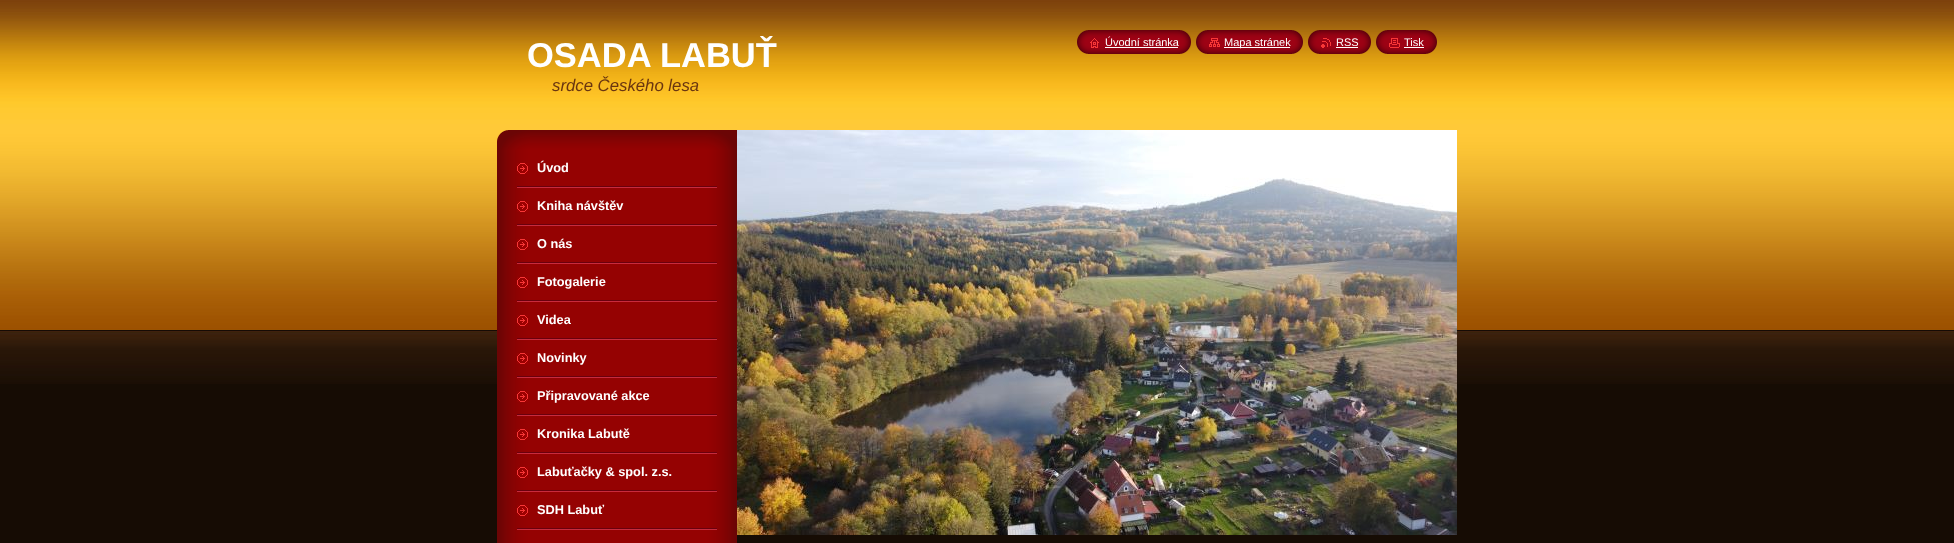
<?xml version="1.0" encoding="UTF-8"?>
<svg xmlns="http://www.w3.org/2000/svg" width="1954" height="543">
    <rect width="100%" height="100%" fill="#160C04"/>
    <image x="0" y="0" width="1954" height="384" href="img_01.png"/>
    <text x="527" y="67" font-family="Liberation Sans" font-size="34.5" font-weight="700" fill="#FFFFFF">OSADA LABUŤ</text>
    <text x="552" y="91" font-family="Liberation Sans" font-size="16.75" font-style="italic" fill="#6A3610">srdce Českého lesa</text>
    <image x="1077" y="30" width="13" height="24" href="img_02.png"/>
    <image x="1090" y="30" width="101" height="24" href="img_03.png"/>
    <image x="1090" y="38" width="9" height="10" href="img_04.png"/>
    <text x="1105" y="46" font-family="Liberation Sans" font-size="11" fill="#FFFFFF">Úvodní stránka</text>
    <rect x="1105" y="47" width="73" height="1" fill="#FFFFFF"/>
    <image x="1196" y="30" width="13" height="24" href="img_02.png"/>
    <image x="1209" y="30" width="94" height="24" href="img_05.png"/>
    <image x="1209" y="38" width="11" height="9" href="img_06.png"/>
    <rect x="1224" y="47" width="66" height="1" fill="#FFFFFF"/>
    <text x="1224" y="46" font-family="Liberation Sans" font-size="11" fill="#FFFFFF">Mapa stránek</text>
    <image x="1308" y="30" width="13" height="24" href="img_02.png"/>
    <image x="1321" y="30" width="50" height="24" href="img_07.png"/>
    <image x="1321" y="38" width="10" height="10" href="img_08.png"/>
    <text x="1336" y="46" font-family="Liberation Sans" font-size="11" fill="#FFFFFF">RSS</text>
    <rect x="1336" y="47" width="22" height="1" fill="#FFFFFF"/>
    <image x="1376" y="30" width="13" height="24" href="img_02.png"/>
    <image x="1389" y="30" width="48" height="24" href="img_09.png"/>
    <image x="1389" y="38" width="11" height="10" href="img_10.png"/>
    <text x="1404" y="46" font-family="Liberation Sans" font-size="11" fill="#FFFFFF">Tisk</text>
    <rect x="1404" y="47" width="20" height="1" fill="#FFFFFF"/>
    <image x="497" y="130" width="240" height="20" href="img_11.png"/>
    <image x="497" y="150" width="240" height="393" href="img_12.png"/>
    <image x="517" y="186" width="200" height="2" href="img_13.png"/>
    <image x="517" y="163" width="11" height="11" href="img_14.png"/>
    <text x="537" y="172" font-family="Liberation Sans" font-size="12.75" font-weight="700" fill="#FFFFFF">Úvod</text>
    <image x="517" y="224" width="200" height="2" href="img_13.png"/>
    <image x="517" y="201" width="11" height="11" href="img_14.png"/>
    <text x="537" y="210" font-family="Liberation Sans" font-size="12.75" font-weight="700" fill="#FFFFFF">Kniha návštěv</text>
    <image x="517" y="262" width="200" height="2" href="img_13.png"/>
    <image x="517" y="239" width="11" height="11" href="img_14.png"/>
    <text x="537" y="248" font-family="Liberation Sans" font-size="12.75" font-weight="700" fill="#FFFFFF">O nás</text>
    <image x="517" y="300" width="200" height="2" href="img_13.png"/>
    <image x="517" y="277" width="11" height="11" href="img_14.png"/>
    <text x="537" y="286" font-family="Liberation Sans" font-size="12.75" font-weight="700" fill="#FFFFFF">Fotogalerie</text>
    <image x="517" y="338" width="200" height="2" href="img_13.png"/>
    <image x="517" y="315" width="11" height="11" href="img_14.png"/>
    <text x="537" y="324" font-family="Liberation Sans" font-size="12.75" font-weight="700" fill="#FFFFFF">Videa</text>
    <image x="517" y="376" width="200" height="2" href="img_13.png"/>
    <image x="517" y="353" width="11" height="11" href="img_14.png"/>
    <text x="537" y="362" font-family="Liberation Sans" font-size="12.75" font-weight="700" fill="#FFFFFF">Novinky</text>
    <image x="517" y="414" width="200" height="2" href="img_13.png"/>
    <image x="517" y="391" width="11" height="11" href="img_14.png"/>
    <text x="537" y="400" font-family="Liberation Sans" font-size="12.75" font-weight="700" fill="#FFFFFF">Připravované akce</text>
    <image x="517" y="452" width="200" height="2" href="img_13.png"/>
    <image x="517" y="429" width="11" height="11" href="img_14.png"/>
    <text x="537" y="438" font-family="Liberation Sans" font-size="12.75" font-weight="700" fill="#FFFFFF">Kronika Labutě</text>
    <image x="517" y="490" width="200" height="2" href="img_13.png"/>
    <image x="517" y="467" width="11" height="11" href="img_14.png"/>
    <text x="537" y="476" font-family="Liberation Sans" font-size="12.75" font-weight="700" fill="#FFFFFF">Labuťačky &amp; spol. z.s.</text>
    <image x="517" y="528" width="200" height="2" href="img_13.png"/>
    <image x="517" y="505" width="11" height="11" href="img_14.png"/>
    <text x="537" y="514" font-family="Liberation Sans" font-size="12.75" font-weight="700" fill="#FFFFFF">SDH Labuť</text>
    <image x="737" y="130" width="720" height="405" href="img_15.png"/>
</svg>
